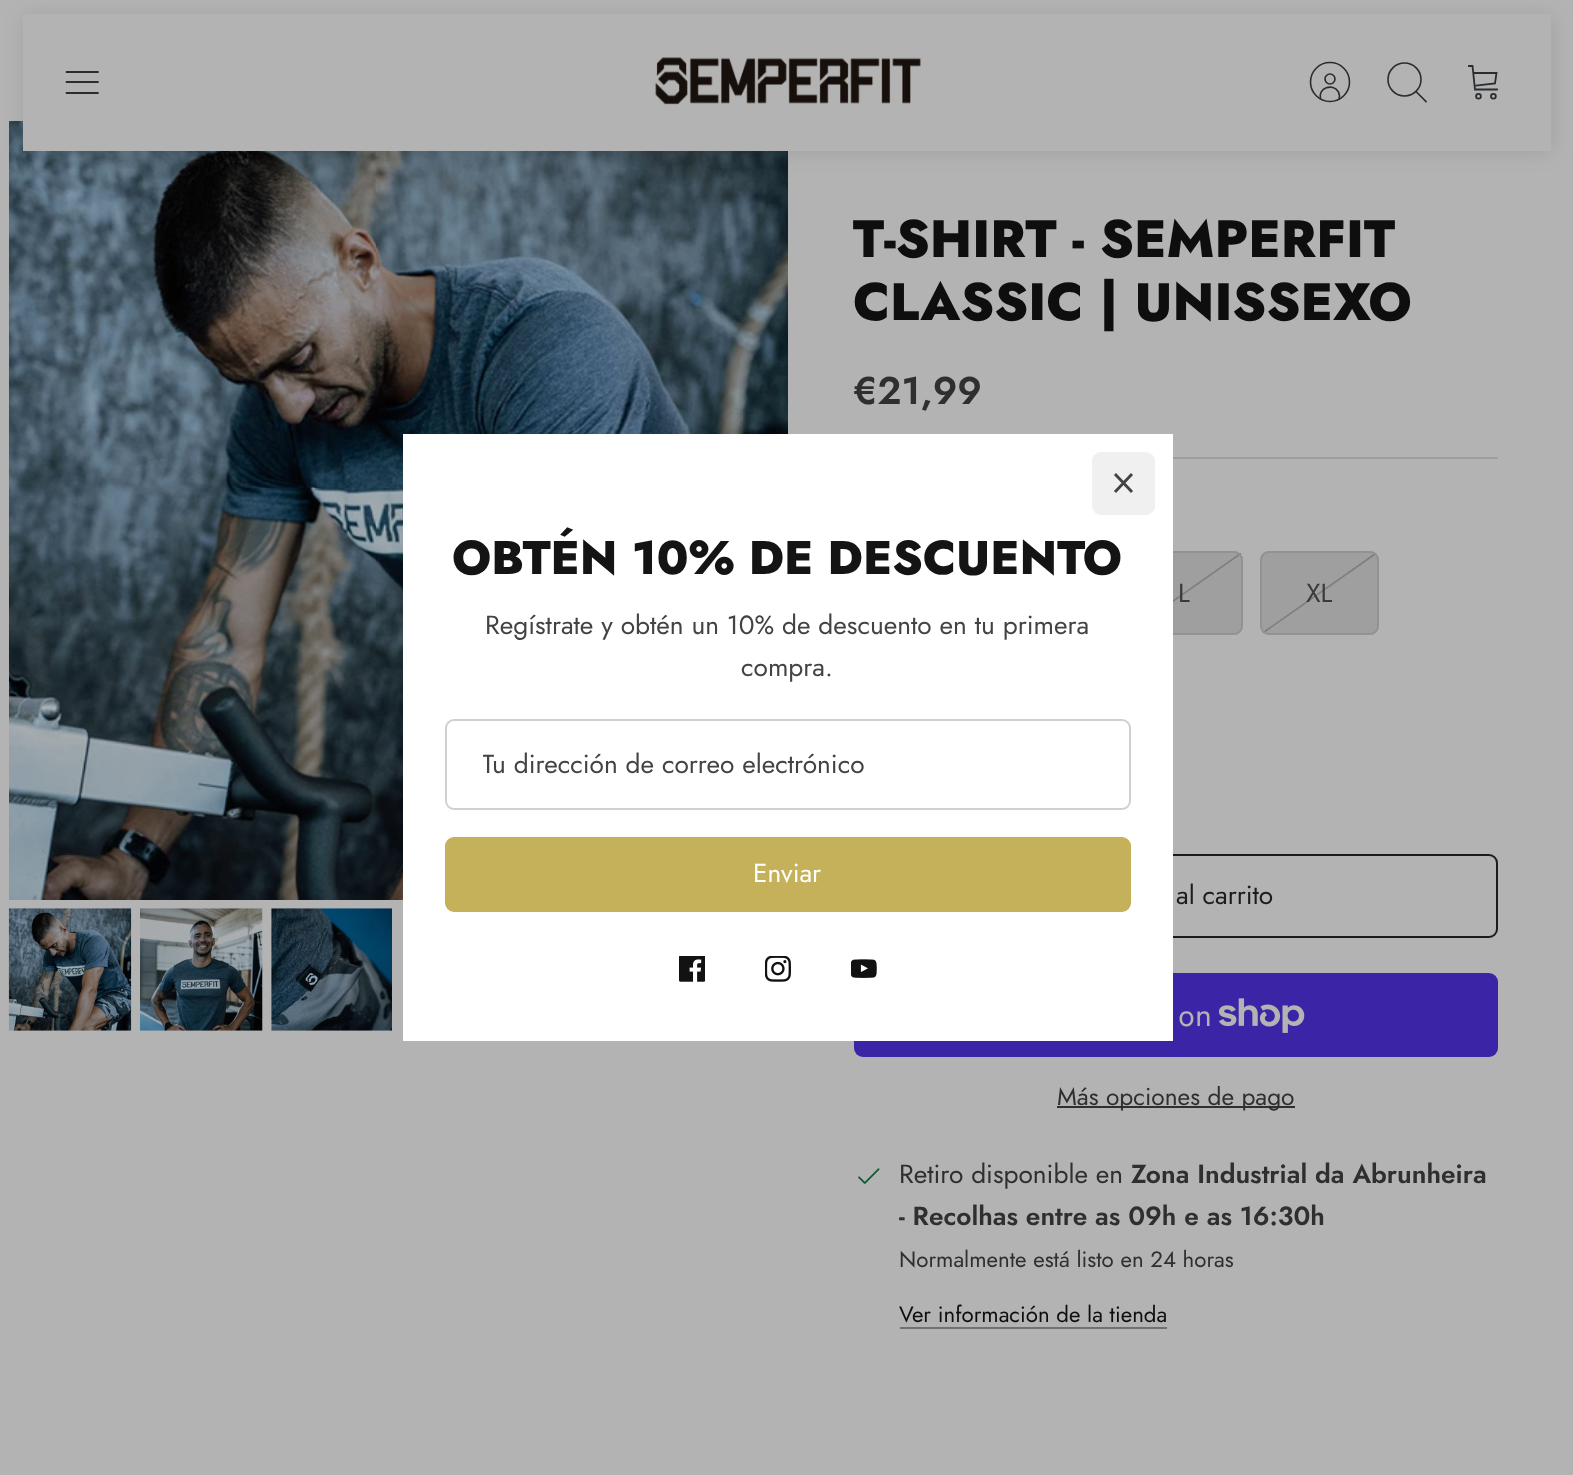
<?xml version="1.0" encoding="UTF-8"?>
<svg xmlns="http://www.w3.org/2000/svg" width="1573" height="1475">
    <defs>
        <filter id="blur1" x="-50%" y="-200%" width="200%" height="500%"><feGaussianBlur stdDeviation="10.5"/></filter>
        <clipPath id="clip1"><rect x="1127" y="553" width="114" height="81"/></clipPath>
        <clipPath id="clip2"><rect x="483" y="744" width="609" height="38"/></clipPath>
        <clipPath id="clip3"><rect x="1260" y="551" width="119" height="84" rx="9"/></clipPath>
    </defs>
    <rect width="100%" height="100%" fill="#B3B3B3"/>
    <image x="9" y="121" width="779" height="779" href="img_05.png"/>
    <rect x="25" y="16" width="1527" height="136" fill="#000000" fill-opacity="0.1" filter="url(#blur1)"/>
    <rect x="23" y="14" width="1528" height="137" fill="#B3B3B3"/>
    <path d="M 66.5 82 H 98 M 66.5 72 H 98 M 66.5 93 H 98" fill="none" stroke="#2A2D2F" stroke-width="1.8" stroke-linecap="round" stroke-linejoin="round"/>
    <image x="655" y="57" width="266" height="48" href="img_01.png"/>
    <path d="M 1339 99.5 C 1340 97 1339.5 94.5 1338.5 92 C 1333 82.5 1317.5 88 1320.5 99" fill="none" stroke="#2A2D2F" stroke-width="1.6"/>
    <circle cx="1330" cy="79" r="5" fill="none" stroke="#2A2D2F" stroke-width="1.6"/>
    <circle cx="1330" cy="82" r="19.5" fill="none" stroke="#2A2D2F" stroke-width="1.6"/>
    <circle cx="1404.5" cy="79.5" r="16.5" fill="none" stroke="#2A2D2F" stroke-width="1.6"/>
    <path d="M 1416.5 92 L 1426 101.5" fill="none" stroke="#2A2D2F" stroke-width="1.6" stroke-linecap="square"/>
    <path d="M 1469 66 H 1472.5 L 1475 89.5 H 1497 M 1474 73 H 1496.5 L 1495 83.5 L 1476.5 85.5" fill="none" stroke="#2A2D2F" stroke-width="1.8" stroke-linecap="square"/>
    <circle cx="1478.5" cy="96.3" r="2.4" fill="none" stroke="#2A2D2F" stroke-width="1.8"/>
    <circle cx="1493.4" cy="96.3" r="2.4" fill="none" stroke="#2A2D2F" stroke-width="1.8"/>
    <rect x="1125" y="551" width="118" height="84" rx="9" fill="#9F9F9F"/>
    <g clip-path="url(#clip1)">
        <path d="M 1241.5 553 L 1127 633.5" fill="none" stroke="#7D7D7D" stroke-width="1.6"/>
    </g>
    <rect x="1126" y="552" width="116" height="82" rx="8" fill="none" stroke="#929292" stroke-width="2"/>
    <rect x="855" y="855" width="642" height="82" rx="8" fill="none" stroke="#1C1C1C" stroke-width="2"/>
    <rect x="854" y="973" width="644" height="84" rx="9" fill="#3B24A5"/>
    <rect x="403" y="434" width="770" height="607" fill="#FFFFFF"/>
    <rect x="1092" y="452" width="63" height="63" rx="9" fill="#F0F0F0"/>
    <path d="M 1132 474 L 1115 492 M 1115 474 L 1132 492" fill="none" stroke="#434343" stroke-width="2.9"/>
    <text x="452" y="574" font-family="Jost" font-size="47.25" font-weight="800" fill="#141414">OBTÉN 10% DE DESCUENTO</text>
    <text x="485" y="634" font-family="Jost" font-size="26.25" fill="#434343">Regístrate y obtén un 10% de descuento en tu primera</text>
    <text x="741" y="676" font-family="Jost" font-size="26.25" fill="#434343">compra.</text>
    <rect x="446" y="720" width="684" height="89" rx="8" fill="none" stroke="#D0D0D0" stroke-width="2"/>
    <g clip-path="url(#clip2)">
        <text x="482" y="773" font-family="Jost" font-size="26.25" fill="#434343">Tu dirección de correo electrónico</text>
    </g>
    <rect x="446" y="838" width="684" height="73" rx="8" fill="#C5B159" stroke="#C5B159" stroke-width="2"/>
    <text x="753" y="882" font-family="Jost" font-size="26.25" fill="#FFFFFF">Enviar</text>
    <image x="679" y="956" width="26" height="26" href="img_02.png"/>
    <image x="765" y="956" width="26" height="26" href="img_03.png"/>
    <image x="851" y="959" width="26" height="19" href="img_04.png"/>
    <image x="8" y="908" width="124" height="123" href="img_06.png"/>
    <image x="140" y="908" width="123" height="123" href="img_07.png"/>
    <image x="271" y="908" width="121" height="123" href="img_08.png"/>
    <text font-family="Jost" font-size="52.5" font-weight="800" fill="#0E0E0E">
        <tspan x="853" y="257">T-SHIRT - SEMPERFIT</tspan>
        <tspan x="853" y="320">CLASSIC | UNISSEXO</tspan>
    </text>
    <text x="853" y="404" font-family="Jost" font-size="38.5" font-weight="600" fill="#2F2F2F">€21,99</text>
    <rect x="1173" y="457" width="325" height="2" fill="#9E9E9E"/>
    <text x="1178" y="602" font-family="Jost" font-size="26.25" fill="#3A3A3A">L</text>
    <rect x="1260" y="551" width="119" height="84" rx="9" fill="#9F9F9F"/>
    <g clip-path="url(#clip3)">
        <path d="M 1376.5 553 L 1262 633.5" fill="none" stroke="#7D7D7D" stroke-width="1.6"/>
    </g>
    <rect x="1261" y="552" width="117" height="82" rx="8" fill="none" stroke="#929292" stroke-width="2"/>
    <text x="1306" y="602" font-family="Jost" font-size="26.25" fill="#3A3A3A">XL</text>
    <text x="1176" y="904" font-family="Jost" font-size="26.25" fill="#1C1C1C">al carrito</text>
    <text x="1178" y="1026" font-family="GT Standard" font-size="28" fill="#B3B3B3">on</text>
    <image x="1219" y="998" width="86" height="35" href="img_09.png"/>
    <rect x="1057" y="1106" width="238" height="2" fill="#2F2F2F"/>
    <text x="1057" y="1105" font-family="Jost" font-size="24.5" fill="#2F2F2F">Más opciones de pago</text>
    <image x="858" y="1168" width="22" height="16" href="img_10.png"/>
    <text x="899" y="1183" font-family="Jost" font-size="26.25" fill="#2F2F2F">Retiro disponible en</text>
    <text x="1131" y="1183" font-family="Jost" font-size="26.25" font-weight="600" fill="#2F2F2F">Zona Industrial da Abrunheira</text>
    <text x="899" y="1225" font-family="Jost" font-size="26.25" font-weight="600" fill="#2F2F2F">- Recolhas entre as 09h e as 16:30h</text>
    <text x="899" y="1267" font-family="Jost" font-size="22.25" fill="#2F2F2F">Normalmente está listo en 24 horas</text>
    <text x="899" y="1322" font-family="Jost" font-size="22.25" fill="#0E0E0E">Ver información de la tienda</text>
    <rect x="900" y="1327" width="267" height="2" fill="#707070"/>
</svg>
